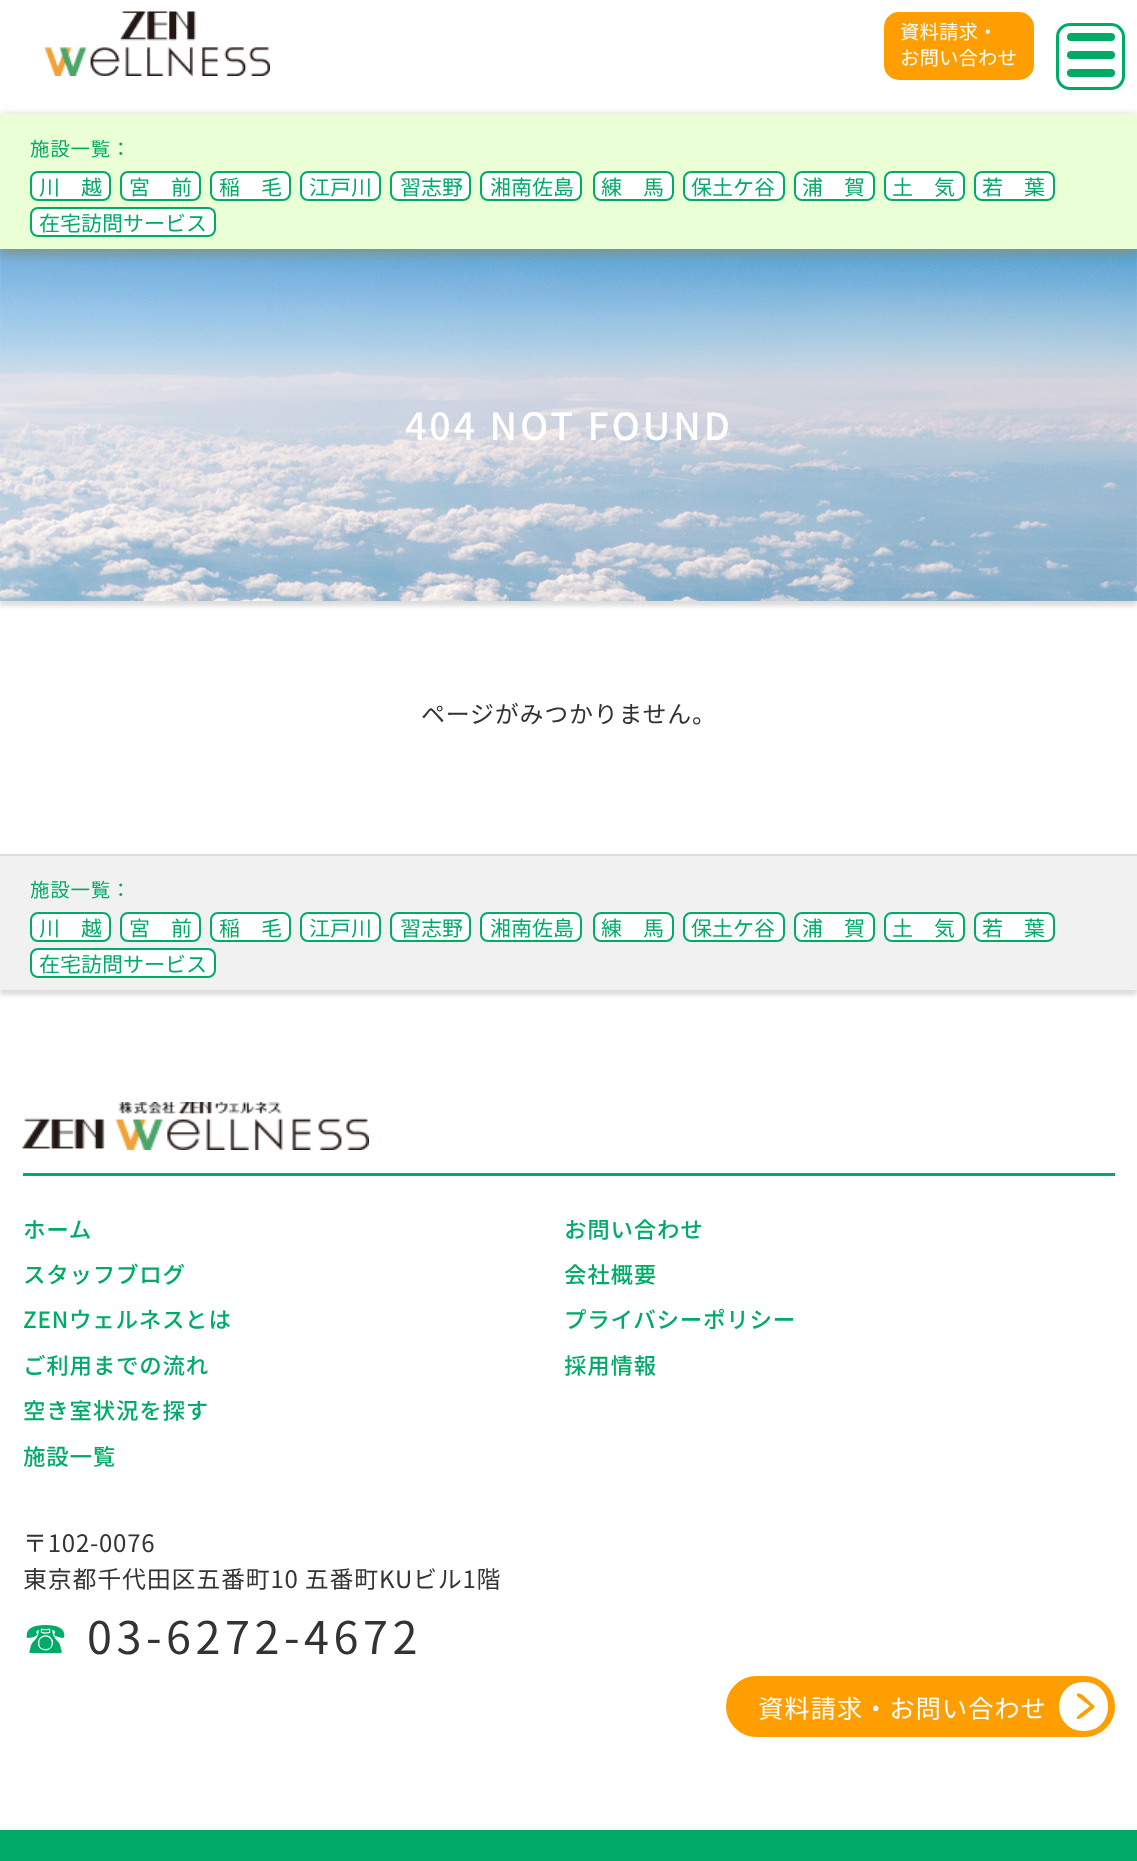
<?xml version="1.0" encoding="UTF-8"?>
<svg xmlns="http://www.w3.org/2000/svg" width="1137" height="1861">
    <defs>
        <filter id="blur1" x="-50%" y="-200%" width="200%" height="500%"><feGaussianBlur stdDeviation="2"/></filter>
        <filter id="blur2" x="-50%" y="-200%" width="200%" height="500%"><feGaussianBlur stdDeviation="6"/></filter>
    </defs>
    <rect width="100%" height="100%" fill="#FFFFFF"/>
    <image x="45" y="11" width="225" height="65" href="img_01.png"/>
    <rect x="885" y="13" width="148" height="66" rx="14" fill="#FF9E00" stroke="#FF9E00" stroke-width="2"/>
    <text font-family="Noto Sans JP" font-size="19.5" fill="#FFFFFF">
        <tspan x="900" y="39">資料請求・</tspan>
        <tspan x="900" y="65">お問い合わせ</tspan>
    </text>
    <rect x="1057.5" y="24.5" width="66" height="64" rx="12.5" fill="none" stroke="#00AB67" stroke-width="3"/>
    <rect x="1067" y="51" width="48" height="8" rx="4" fill="#00AB67"/>
    <rect x="1067" y="33" width="48" height="8" rx="4" fill="#00AB67"/>
    <rect x="1067" y="69" width="48" height="8" rx="4" fill="#00AB67"/>
    <rect x="0" y="254" width="1137" height="352" fill="#DDDDDD" filter="url(#blur1)"/>
    <image x="0" y="249" width="1137" height="352" href="img_02.png"/>
    <rect x="0" y="119" width="1137" height="135" fill="#83948A" filter="url(#blur2)"/>
    <rect x="0" y="114" width="1137" height="135" fill="#EBFFD7"/>
    <text x="30" y="156" font-family="Noto Sans JP" font-size="19.5" letter-spacing="0.75" fill="#00AB67">施設一覧：</text>
    <rect x="31" y="172" width="79" height="28" rx="7" fill="#FFFFFF" stroke="#00AB67" stroke-width="2"/>
    <text x="39" y="195" font-family="Noto Sans JP" font-size="21" fill="#00AB67">川　越</text>
    <rect x="121" y="172" width="79" height="28" rx="7" fill="#FFFFFF" stroke="#00AB67" stroke-width="2"/>
    <text x="129" y="195" font-family="Noto Sans JP" font-size="21" fill="#00AB67">宮　前</text>
    <rect x="211" y="172" width="79" height="28" rx="7" fill="#FFFFFF" stroke="#00AB67" stroke-width="2"/>
    <text x="219" y="195" font-family="Noto Sans JP" font-size="21" fill="#00AB67">稲　毛</text>
    <rect x="301" y="172" width="79" height="28" rx="7" fill="#FFFFFF" stroke="#00AB67" stroke-width="2"/>
    <text x="309" y="195" font-family="Noto Sans JP" font-size="21" fill="#00AB67">江戸川</text>
    <rect x="391" y="172" width="79" height="28" rx="7" fill="#FFFFFF" stroke="#00AB67" stroke-width="2"/>
    <text x="400" y="195" font-family="Noto Sans JP" font-size="21" fill="#00AB67">習志野</text>
    <rect x="481" y="172" width="100" height="28" rx="7" fill="#FFFFFF" stroke="#00AB67" stroke-width="2"/>
    <text x="490" y="195" font-family="Noto Sans JP" font-size="21" fill="#00AB67">湘南佐島</text>
    <rect x="594" y="172" width="79" height="28" rx="7" fill="#FFFFFF" stroke="#00AB67" stroke-width="2"/>
    <text x="601" y="195" font-family="Noto Sans JP" font-size="21" fill="#00AB67">練　馬</text>
    <rect x="684" y="172" width="100" height="28" rx="7" fill="#FFFFFF" stroke="#00AB67" stroke-width="2"/>
    <text x="691" y="195" font-family="Noto Sans JP" font-size="21" fill="#00AB67">保土ケ谷</text>
    <rect x="795" y="172" width="79" height="28" rx="7" fill="#FFFFFF" stroke="#00AB67" stroke-width="2"/>
    <text x="802" y="195" font-family="Noto Sans JP" font-size="21" fill="#00AB67">浦　賀</text>
    <rect x="885" y="172" width="79" height="28" rx="7" fill="#FFFFFF" stroke="#00AB67" stroke-width="2"/>
    <text x="892" y="195" font-family="Noto Sans JP" font-size="21" fill="#00AB67">土　気</text>
    <rect x="975" y="172" width="79" height="28" rx="7" fill="#FFFFFF" stroke="#00AB67" stroke-width="2"/>
    <text x="982" y="195" font-family="Noto Sans JP" font-size="21" fill="#00AB67">若　葉</text>
    <rect x="31" y="208" width="184" height="28" rx="7" fill="#FFFFFF" stroke="#00AB67" stroke-width="2"/>
    <text x="39" y="231" font-family="Noto Sans JP" font-size="21" fill="#00AB67">在宅訪問サービス</text>
    <text x="405" y="440" font-family="Noto Sans JP" font-size="37.5" font-weight="500" letter-spacing="3" fill="#FFFFFF">404 NOT FOUND</text>
    <text x="421" y="723" font-family="Noto Sans JP" font-size="24" letter-spacing="0.75" fill="#333333">ページがみつかりません。</text>
    <rect x="0" y="858" width="1137" height="137" fill="#DDDDDD" filter="url(#blur1)"/>
    <rect x="0" y="856" width="1137" height="134" fill="#F1F1F1"/>
    <rect x="0" y="854" width="1137" height="2" fill="#DDDDDD"/>
    <text x="30" y="897" font-family="Noto Sans JP" font-size="19.5" letter-spacing="0.75" fill="#00AB67">施設一覧：</text>
    <rect x="31" y="913" width="79" height="28" rx="7" fill="#FFFFFF" stroke="#00AB67" stroke-width="2"/>
    <text x="39" y="936" font-family="Noto Sans JP" font-size="21" fill="#00AB67">川　越</text>
    <rect x="121" y="913" width="79" height="28" rx="7" fill="#FFFFFF" stroke="#00AB67" stroke-width="2"/>
    <text x="129" y="936" font-family="Noto Sans JP" font-size="21" fill="#00AB67">宮　前</text>
    <rect x="211" y="913" width="79" height="28" rx="7" fill="#FFFFFF" stroke="#00AB67" stroke-width="2"/>
    <text x="219" y="936" font-family="Noto Sans JP" font-size="21" fill="#00AB67">稲　毛</text>
    <rect x="301" y="913" width="79" height="28" rx="7" fill="#FFFFFF" stroke="#00AB67" stroke-width="2"/>
    <text x="309" y="936" font-family="Noto Sans JP" font-size="21" fill="#00AB67">江戸川</text>
    <rect x="391" y="913" width="79" height="28" rx="7" fill="#FFFFFF" stroke="#00AB67" stroke-width="2"/>
    <text x="400" y="936" font-family="Noto Sans JP" font-size="21" fill="#00AB67">習志野</text>
    <rect x="481" y="913" width="100" height="28" rx="7" fill="#FFFFFF" stroke="#00AB67" stroke-width="2"/>
    <text x="490" y="936" font-family="Noto Sans JP" font-size="21" fill="#00AB67">湘南佐島</text>
    <rect x="594" y="913" width="79" height="28" rx="7" fill="#FFFFFF" stroke="#00AB67" stroke-width="2"/>
    <text x="601" y="936" font-family="Noto Sans JP" font-size="21" fill="#00AB67">練　馬</text>
    <rect x="684" y="913" width="100" height="28" rx="7" fill="#FFFFFF" stroke="#00AB67" stroke-width="2"/>
    <text x="691" y="936" font-family="Noto Sans JP" font-size="21" fill="#00AB67">保土ケ谷</text>
    <rect x="795" y="913" width="79" height="28" rx="7" fill="#FFFFFF" stroke="#00AB67" stroke-width="2"/>
    <text x="802" y="936" font-family="Noto Sans JP" font-size="21" fill="#00AB67">浦　賀</text>
    <rect x="885" y="913" width="79" height="28" rx="7" fill="#FFFFFF" stroke="#00AB67" stroke-width="2"/>
    <text x="892" y="936" font-family="Noto Sans JP" font-size="21" fill="#00AB67">土　気</text>
    <rect x="975" y="913" width="79" height="28" rx="7" fill="#FFFFFF" stroke="#00AB67" stroke-width="2"/>
    <text x="982" y="936" font-family="Noto Sans JP" font-size="21" fill="#00AB67">若　葉</text>
    <rect x="31" y="949" width="184" height="28" rx="7" fill="#FFFFFF" stroke="#00AB67" stroke-width="2"/>
    <text x="39" y="972" font-family="Noto Sans JP" font-size="21" fill="#00AB67">在宅訪問サービス</text>
    <rect x="23" y="1173" width="1092" height="3" fill="#00AB67"/>
    <image x="22" y="1102" width="347" height="48" href="img_03.png"/>
    <text x="23" y="1238" font-family="Noto Sans JP" font-size="22.5" font-weight="500" letter-spacing="0.75" fill="#00AB67">ホーム</text>
    <text x="23" y="1283" font-family="Noto Sans JP" font-size="22.5" font-weight="500" letter-spacing="0.75" fill="#00AB67">スタッフブログ</text>
    <text x="23" y="1328" font-family="Noto Sans JP" font-size="22.5" font-weight="500" letter-spacing="0.75" fill="#00AB67">ZENウェルネスとは</text>
    <text x="23" y="1374" font-family="Noto Sans JP" font-size="22.5" font-weight="500" letter-spacing="0.75" fill="#00AB67">ご利用までの流れ</text>
    <text x="23" y="1419" font-family="Noto Sans JP" font-size="22.5" font-weight="500" letter-spacing="0.75" fill="#00AB67">空き室状況を探す</text>
    <text x="564" y="1238" font-family="Noto Sans JP" font-size="22.5" font-weight="500" letter-spacing="0.75" fill="#00AB67">お問い合わせ</text>
    <text x="564" y="1283" font-family="Noto Sans JP" font-size="22.5" font-weight="500" letter-spacing="0.75" fill="#00AB67">会社概要</text>
    <text x="564" y="1328" font-family="Noto Sans JP" font-size="22.5" font-weight="500" letter-spacing="0.75" fill="#00AB67">プライバシーポリシー</text>
    <text x="564" y="1374" font-family="Noto Sans JP" font-size="22.5" font-weight="500" letter-spacing="0.75" fill="#00AB67">採用情報</text>
    <text x="23" y="1465" font-family="Noto Sans JP" font-size="22.5" font-weight="500" letter-spacing="0.75" fill="#00AB67">施設一覧</text>
    <text font-family="Noto Sans JP" font-size="24" letter-spacing="0.75" fill="#333333">
        <tspan x="23" y="1552">〒102-0076</tspan>
        <tspan x="23" y="1588">東京都千代田区五番町10 五番町KUビル1階</tspan>
    </text>
    <text x="23" y="1654" font-family="WenQuanYi Zen Hei" font-size="45" font-weight="500" letter-spacing="4.5" fill="#00AB67">☎︎</text>
    <text x="87" y="1654" font-family="Noto Sans JP" font-size="45" letter-spacing="4.5" fill="#333333">03-6272-4672</text>
    <rect x="727" y="1677" width="387" height="59" rx="29.5" fill="#FF9E00" stroke="#FF9E00" stroke-width="2"/>
    <text x="758" y="1718" font-family="Noto Sans JP" font-size="25.5" letter-spacing="0.75" fill="#FFFFFF">資料請求・お問い合わせ</text>
    <path d="M 1084 1682 C 1051 1682 1051 1731 1084 1731 C 1116 1731 1116 1682 1084 1682 Z M 1094 1708 C 1088 1712 1076 1724 1077 1717 C 1077 1716 1088 1708 1090 1706 L 1077 1696 V 1694 C 1079 1691 1086 1698 1087 1699 L 1091 1703 C 1092 1704 1096 1706 1094 1708 Z" fill="#FFFFFF" fill-rule="evenodd"/>
    <rect x="0" y="1830" width="1137" height="31" fill="#00AB67"/>
</svg>
